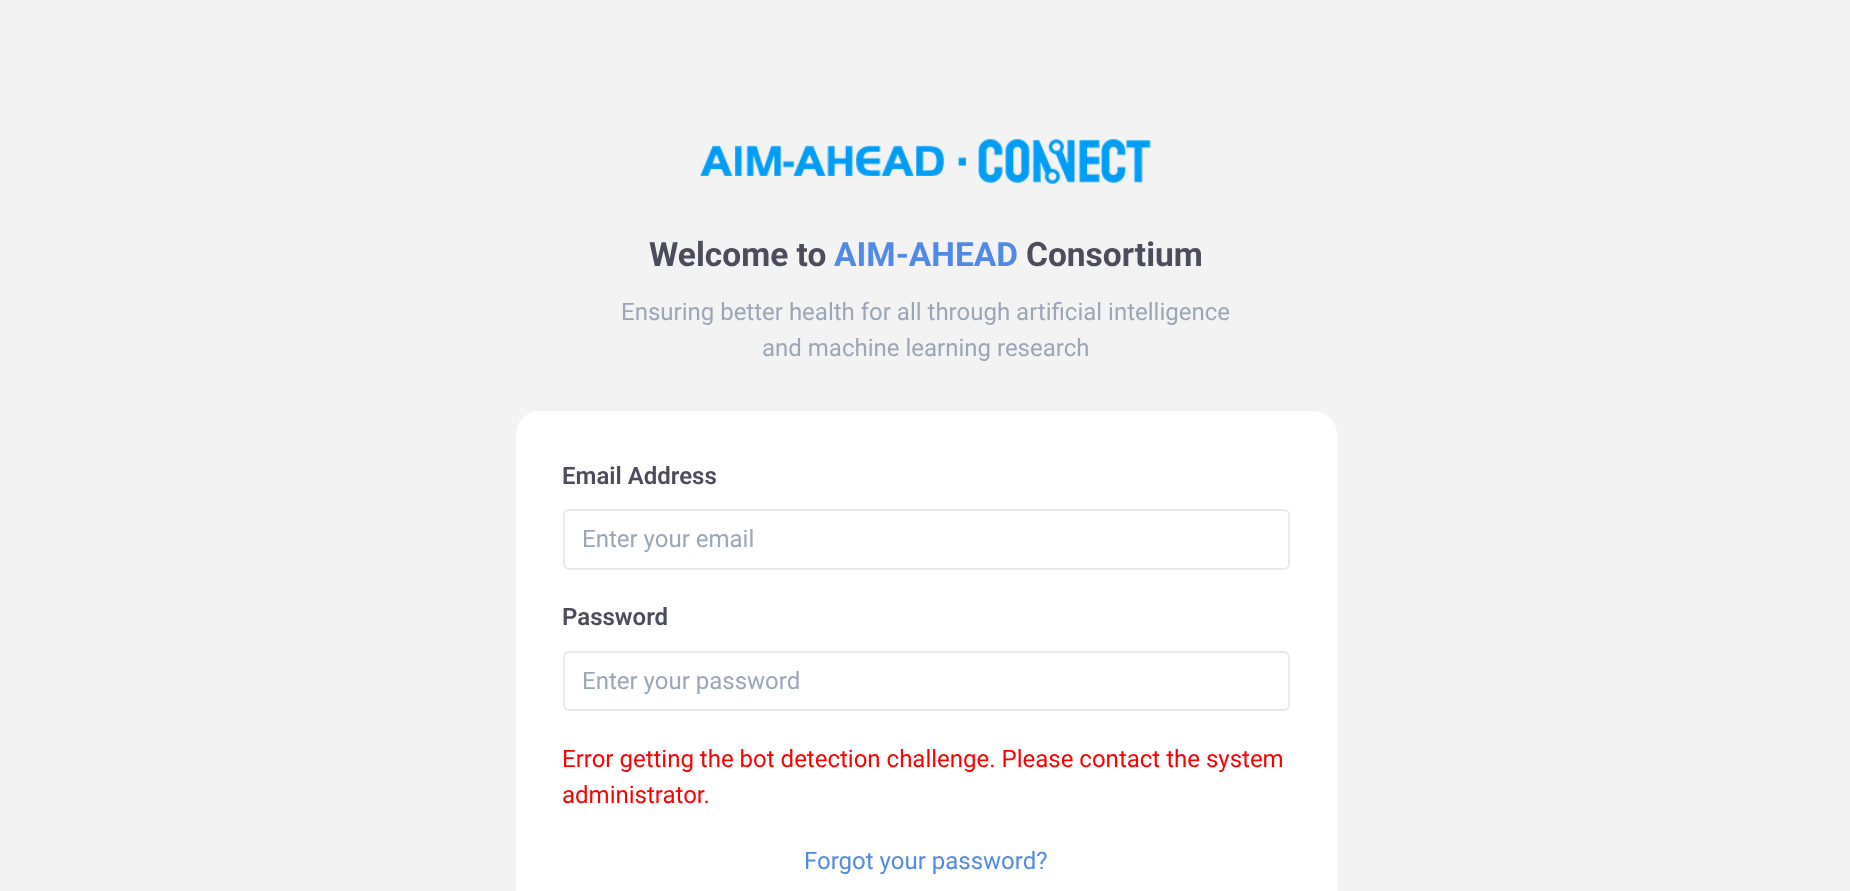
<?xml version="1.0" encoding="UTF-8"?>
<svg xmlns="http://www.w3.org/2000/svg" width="1850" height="891">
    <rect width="100%" height="100%" fill="#F3F3F4"/>
    <image x="700" y="139" width="451" height="45" href="img_01.png"/>
    <text x="649" y="266" font-family="Roboto" font-size="33.5" font-weight="700" fill="#4C4C5C">Welcome to</text>
    <text x="834" y="266" font-family="Roboto" font-size="33.5" font-weight="700" fill="#508AE4">AIM-AHEAD</text>
    <text x="1026" y="266" font-family="Roboto" font-size="33.5" font-weight="700" fill="#4C4C5C">Consortium</text>
    <text x="621" y="320" font-family="Roboto" font-size="24" fill="#9BA6B7">Ensuring better health for all through artificial intelligence</text>
    <text x="762" y="356" font-family="Roboto" font-size="24" fill="#9BA6B7">and machine learning research</text>
    <rect x="516" y="411" width="821" height="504" rx="24" fill="#FFFFFF"/>
    <text x="562" y="484" font-family="Roboto" font-size="24" font-weight="600" fill="#4C4C5C">Email Address</text>
    <rect x="564" y="510" width="725" height="59" rx="5" fill="none" stroke="#E7E9EB" stroke-width="2"/>
    <text x="582" y="547" font-family="Roboto" font-size="24" fill="#9BA6B7">Enter your email</text>
    <text x="562" y="625" font-family="Roboto" font-size="24" font-weight="600" fill="#4C4C5C">Password</text>
    <rect x="564" y="652" width="725" height="58" rx="5" fill="none" stroke="#E7E9EB" stroke-width="2"/>
    <text x="582" y="689" font-family="Roboto" font-size="24" fill="#9BA6B7">Enter your password</text>
    <text font-family="Roboto" font-size="24" fill="#FF0000">
        <tspan x="562" y="767">Error getting the bot detection challenge. Please contact the system</tspan>
        <tspan x="562" y="803">administrator.</tspan>
    </text>
    <text x="804" y="869" font-family="Roboto" font-size="24" fill="#508AE4">Forgot your password?</text>
</svg>
